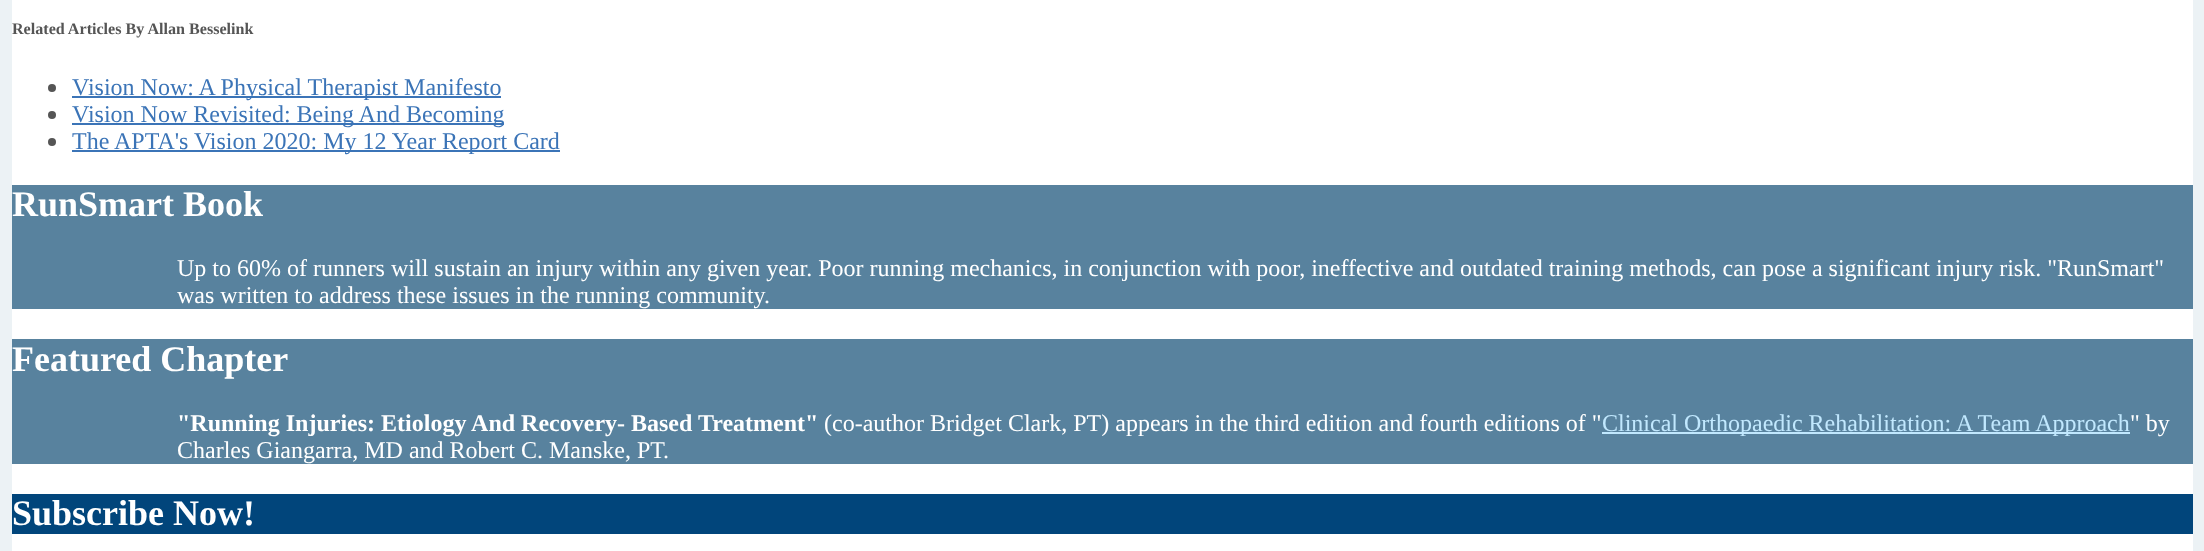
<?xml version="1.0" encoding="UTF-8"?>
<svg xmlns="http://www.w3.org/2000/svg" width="2204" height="551">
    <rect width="100%" height="100%" fill="#ECF2F5"/>
    <rect x="12" y="0" width="2181" height="551" fill="#FFFFFF"/>
    <text x="12" y="34" font-family="Liberation Serif" font-size="16.1" font-weight="700" fill="#555555">Related Articles By Allan Besselink</text>
    <circle cx="52" cy="88" r="4" fill="#555555"/>
    <rect x="72" y="96" width="429" height="2" fill="#3B74B7"/>
    <text x="72" y="95" font-family="Liberation Serif" font-size="24" fill="#3B74B7">Vision Now: A Physical Therapist Manifesto</text>
    <circle cx="52" cy="115" r="4" fill="#555555"/>
    <rect x="72" y="123" width="432" height="2" fill="#3B74B7"/>
    <text x="72" y="122" font-family="Liberation Serif" font-size="24" fill="#3B74B7">Vision Now Revisited: Being And Becoming</text>
    <circle cx="52" cy="142" r="4" fill="#555555"/>
    <rect x="72" y="150" width="488" height="2" fill="#3B74B7"/>
    <text x="72" y="149" font-family="Liberation Serif" font-size="24" fill="#3B74B7">The APTA's Vision 2020: My 12 Year Report Card</text>
    <rect x="12" y="185" width="2181" height="124" fill="#58829E"/>
    <text x="12" y="216" font-family="Liberation Serif" font-size="36" font-weight="700" fill="#FFFFFF">RunSmart Book</text>
    <text font-family="Liberation Serif" font-size="24" fill="#FFFFFF">
        <tspan x="177" y="276">Up to 60% of runners will sustain an injury within any given year. Poor running mechanics, in conjunction with poor, ineffective and outdated training methods, can pose a significant injury risk. "RunSmart"</tspan>
        <tspan x="177" y="303">was written to address these issues in the running community.</tspan>
    </text>
    <rect x="12" y="339" width="2181" height="125" fill="#58829E"/>
    <text x="12" y="371" font-family="Liberation Serif" font-size="36" font-weight="700" fill="#FFFFFF">Featured Chapter</text>
    <text x="177" y="431" font-family="Liberation Serif" font-size="24" font-weight="700" fill="#FFFFFF">"Running Injuries: Etiology And Recovery- Based Treatment"</text>
    <text x="824" y="431" font-family="Liberation Serif" font-size="24" fill="#FFFFFF">(co-author Bridget Clark, PT) appears in the third edition and fourth editions of "</text>
    <rect x="1602" y="432" width="528" height="2" fill="#C1E8FE"/>
    <text x="1602" y="431" font-family="Liberation Serif" font-size="24" fill="#C1E8FE">Clinical Orthopaedic Rehabilitation: A Team Approach</text>
    <text x="2130" y="431" font-family="Liberation Serif" font-size="24" fill="#FFFFFF">" by</text>
    <text x="177" y="458" font-family="Liberation Serif" font-size="24" fill="#FFFFFF">Charles Giangarra, MD and Robert C. Manske, PT.</text>
    <rect x="12" y="494" width="2181" height="40" fill="#01457B"/>
    <text x="12" y="525" font-family="Liberation Serif" font-size="36" font-weight="700" fill="#FFFFFF">Subscribe Now!</text>
</svg>
